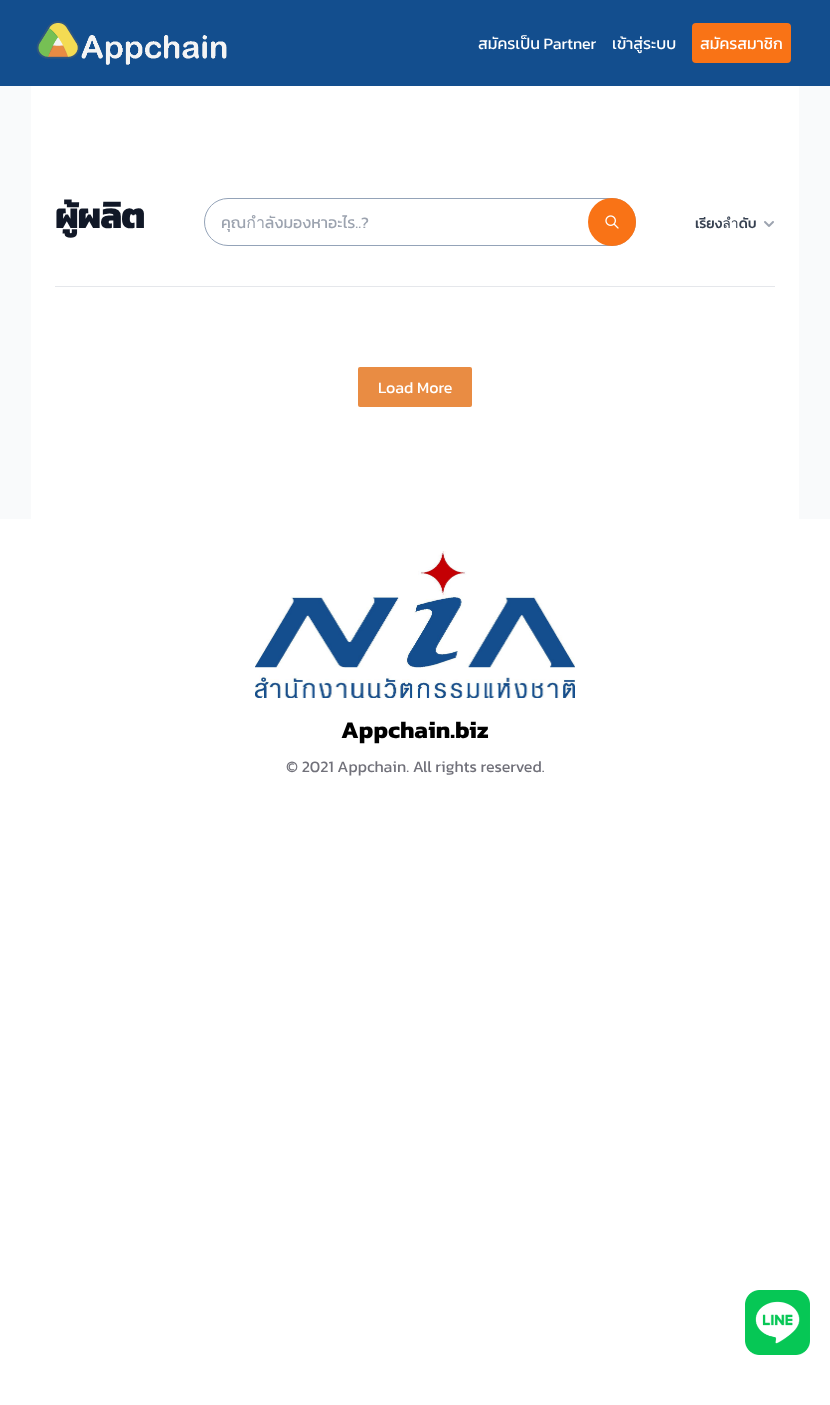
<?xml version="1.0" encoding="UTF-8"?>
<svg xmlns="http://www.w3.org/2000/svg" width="830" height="1405">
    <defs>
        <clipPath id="clip1"><rect x="221" y="210" width="398" height="24"/></clipPath>
    </defs>
    <rect width="100%" height="100%" fill="#FFFFFF"/>
    <rect x="0" y="0" width="830" height="86" fill="#134E8E"/>
    <image x="36" y="21" width="191" height="44" href="img_01.png"/>
    <text x="478" y="49" font-family="Kanit" font-size="16" fill="#FFFFFF">สมัครเป็น Partner</text>
    <text x="612" y="49" font-family="Kanit" font-size="16" fill="#FFFFFF">เข้าสู่ระบบ</text>
    <rect x="692" y="23" width="99" height="40" rx="4" fill="#F97316"/>
    <text x="700" y="49" font-family="Kanit" font-size="16" fill="#FFFFFF">สมัครสมาชิก</text>
    <rect x="0" y="86" width="830" height="433" fill="#F9FAFB"/>
    <rect x="31" y="86" width="768" height="433" fill="#FFFFFF"/>
    <rect x="55" y="286" width="720" height="1" fill="#E5E7EB"/>
    <text x="55" y="228" font-family="Kanit" font-size="36" font-weight="800" letter-spacing="-1" fill="#111827">ผู้ผลิต</text>
    <rect x="204.5" y="198.5" width="431" height="47" rx="23.5" fill="none" stroke="#94A3B8"/>
    <g clip-path="url(#clip1)">
        <text x="221" y="228" font-family="Kanit" font-size="16" fill="#9CA3AF">คุณกำลังมองหาอะไร..?</text>
    </g>
    <circle cx="612" cy="222" r="24" fill="#F97316"/>
    <image x="605" y="215" width="14" height="14" href="img_02.png"/>
    <text x="695" y="228" font-family="Kanit" font-size="14" font-weight="500" fill="#374151">เรียงลำดับ</text>
    <image x="764" y="221" width="10" height="6" href="img_03.png"/>
    <rect x="358" y="367" width="114" height="40" rx="2" fill="#E98C43"/>
    <text x="378" y="393" font-family="Kanit" font-size="16" fill="#FFFFFF">Load More</text>
    <image x="255" y="551" width="320" height="147" href="img_04.png"/>
    <text x="341" y="738" font-family="Kanit" font-size="24" font-weight="700" fill="#000000">Appchain.biz</text>
    <text x="286" y="772" font-family="Kanit" font-size="16" fill="#71717A">© 2021 Appchain. All rights reserved.</text>
    <image x="745" y="1290" width="65" height="65" href="img_05.png"/>
</svg>
